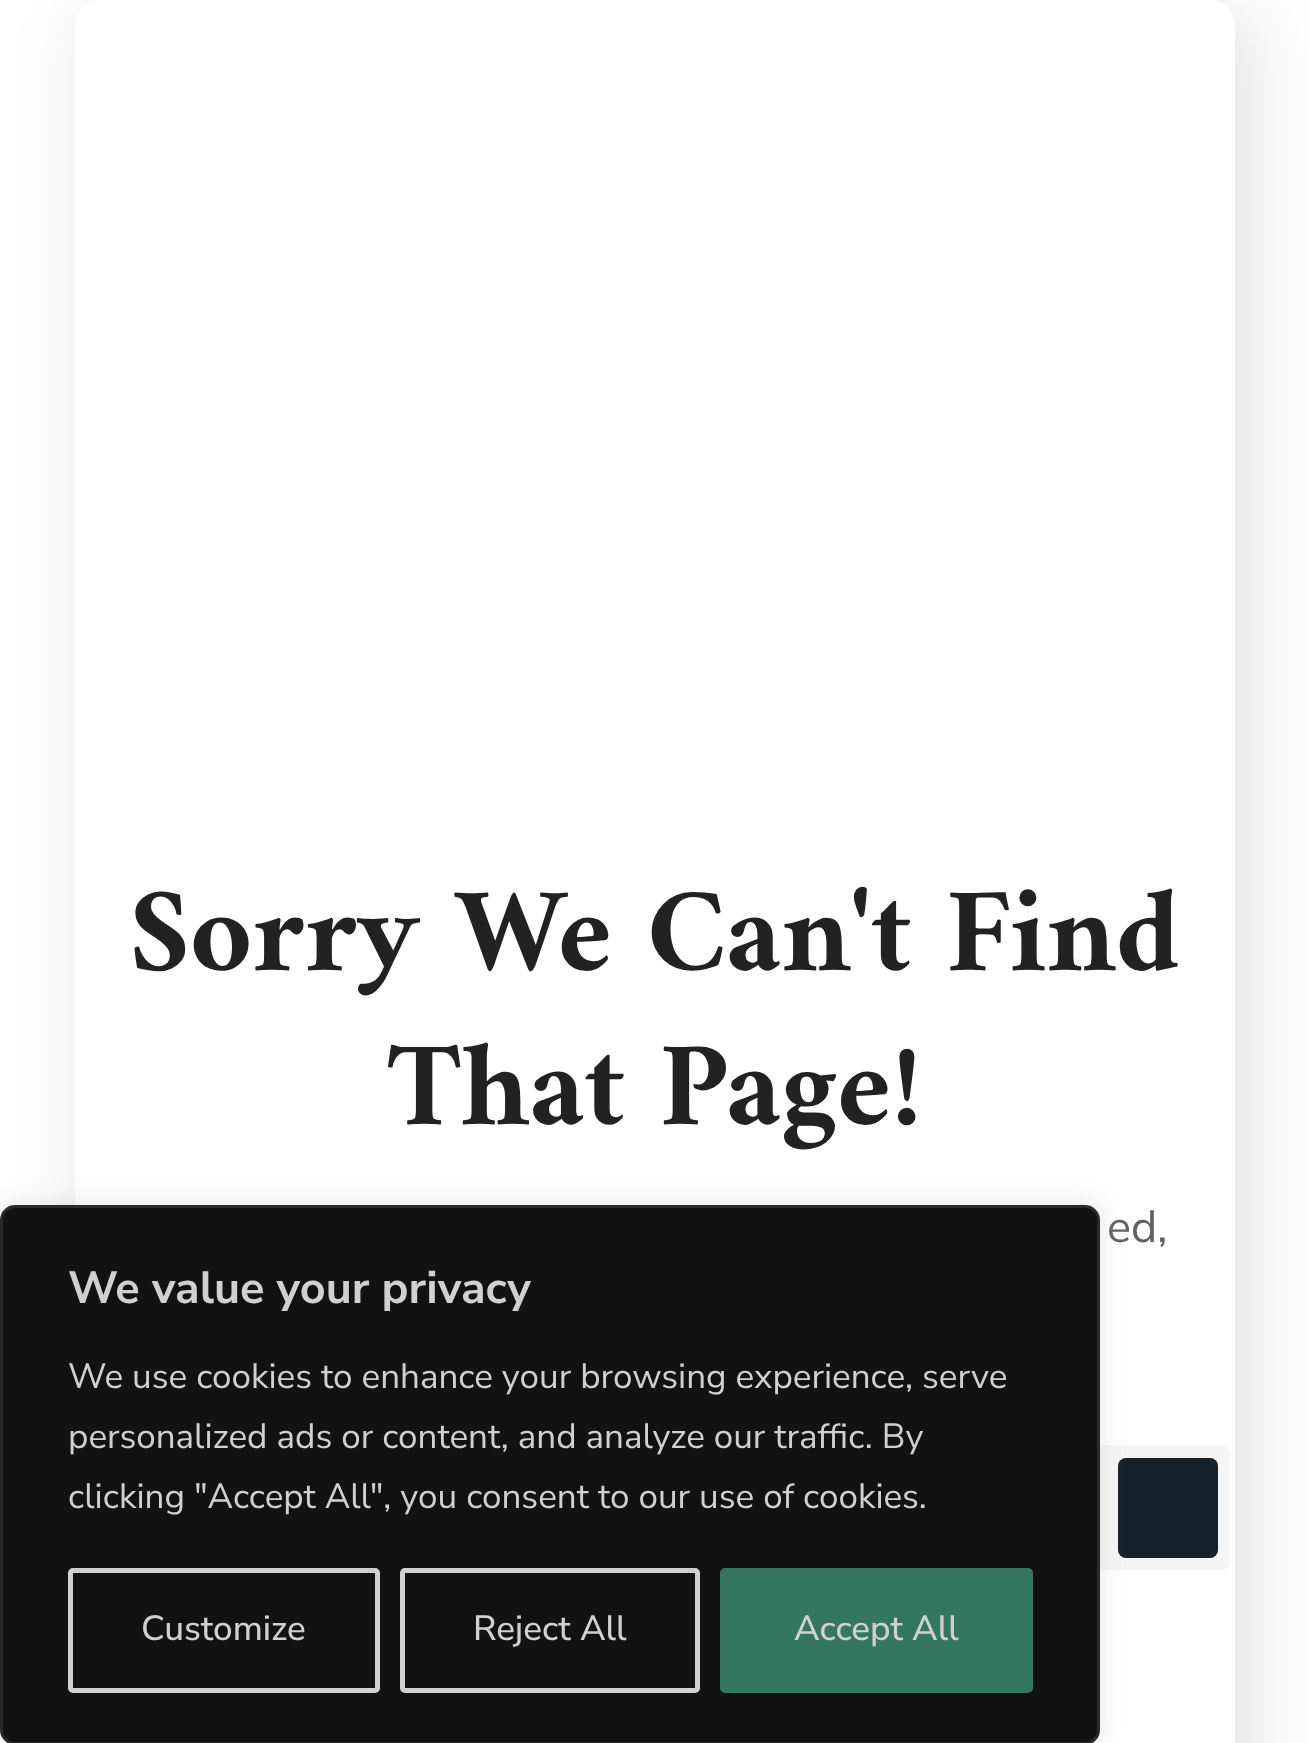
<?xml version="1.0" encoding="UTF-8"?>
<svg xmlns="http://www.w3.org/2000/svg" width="1310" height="1743">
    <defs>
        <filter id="blur1" x="-50%" y="-200%" width="200%" height="500%"><feGaussianBlur stdDeviation="37.5"/></filter>
        <filter id="blur2" x="-50%" y="-200%" width="200%" height="500%"><feGaussianBlur stdDeviation="12.5"/></filter>
    </defs>
    <rect width="100%" height="100%" fill="#FFFFFF"/>
    <rect x="90" y="13" width="1160" height="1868" rx="25" fill="#000000" fill-opacity="0.12" filter="url(#blur1)"/>
    <path d="M 100 0 H 1210 C 1224 0 1235 11 1235 25 V 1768 H 75 V 25 C 75 11 86 0 100 0 Z" fill="#FFFFFF"/>
    <text x="129" y="970" font-family="Amiri" font-size="120" font-weight="700" fill="#222222">Sorry We Can't Find</text>
    <text x="387" y="1124" font-family="Amiri" font-size="120" font-weight="700" fill="#222222">That Page!</text>
    <text x="1107" y="1242" font-family="Nunito Sans" font-size="45" fill="#616161">ed,</text>
    <rect x="80" y="1445" width="1150" height="125" rx="8" fill="#F5F5F5"/>
    <rect x="1118" y="1458" width="100" height="100" rx="8" fill="#14212B"/>
    <rect x="0" y="1203" width="1100" height="540" rx="15" fill="#ACABAB" fill-opacity="0.3" filter="url(#blur2)"/>
    <rect x="1.5" y="1206.5" width="1097" height="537" rx="13.5" fill="#121212" stroke="#2A2A2A" stroke-width="3"/>
    <text x="68" y="1303" font-family="Nunito Sans" font-size="45" font-weight="700" fill="#D0D0D0">We value your privacy</text>
    <text font-family="Nunito Sans" font-size="35" fill="#D0D0D0">
        <tspan x="68" y="1388">We use cookies to enhance your browsing experience, serve</tspan>
        <tspan x="68" y="1448">personalized ads or content, and analyze our traffic. By</tspan>
        <tspan x="68" y="1508">clicking "Accept All", you consent to our use of cookies.</tspan>
    </text>
    <rect x="70.5" y="1570.5" width="307" height="120" rx="2.5" fill="none" stroke="#D0D0D0" stroke-width="5"/>
    <text x="141" y="1640" font-family="Nunito Sans" font-size="35" font-weight="500" fill="#D0D0D0">Customize</text>
    <rect x="402.5" y="1570.5" width="295" height="120" rx="2.5" fill="none" stroke="#D0D0D0" stroke-width="5"/>
    <text x="473" y="1640" font-family="Nunito Sans" font-size="35" font-weight="500" fill="#D0D0D0">Reject All</text>
    <rect x="722.5" y="1570.5" width="308" height="120" rx="2.5" fill="#337761" stroke="#337761" stroke-width="5"/>
    <text x="794" y="1640" font-family="Nunito Sans" font-size="35" font-weight="500" fill="#D0D0D0">Accept All</text>
</svg>
